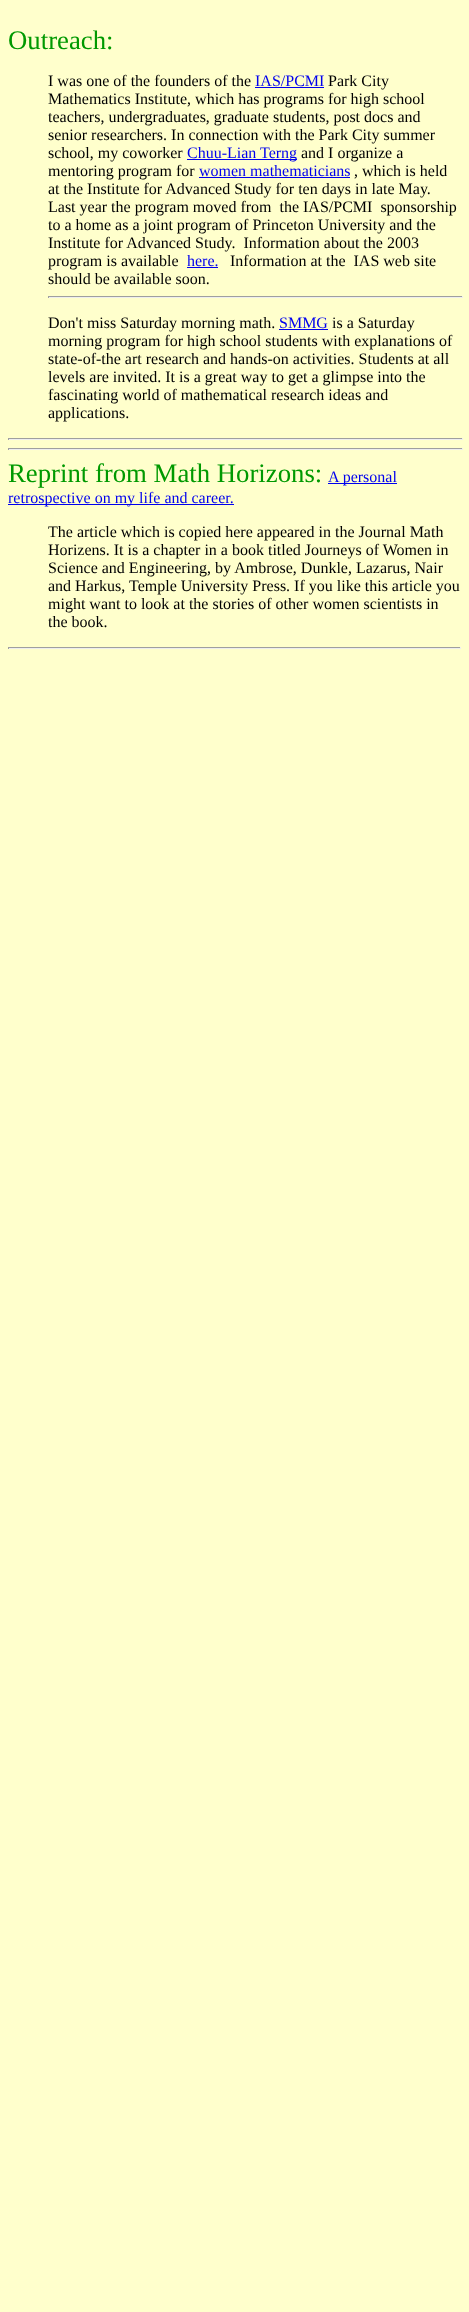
<?xml version="1.0" encoding="UTF-8"?>
<svg xmlns="http://www.w3.org/2000/svg" width="469" height="2312">
    <rect width="100%" height="100%" fill="#FFFFCC"/>
    <text x="8" y="49" font-family="Liberation Serif" font-size="26.75" fill="#009900">Outreach:</text>
    <text x="48" y="86" font-family="Liberation Serif" font-size="16" fill="#000000">I was one of the founders of the</text>
    <text x="255" y="86" font-family="Liberation Serif" font-size="16" fill="#0000EE">IAS/PCMI</text>
    <rect x="255" y="87" width="69" height="1" fill="#0000EE"/>
    <text x="328" y="86" font-family="Liberation Serif" font-size="16" fill="#000000">Park City</text>
    <text font-family="Liberation Serif" font-size="16" fill="#000000">
        <tspan x="48" y="104">Mathematics Institute, which has programs for high school</tspan>
        <tspan x="48" y="122">teachers, undergraduates, graduate students, post docs and</tspan>
        <tspan x="48" y="140">senior researchers. In connection with the Park City summer</tspan>
        <tspan x="48" y="158">school, my coworker</tspan>
    </text>
    <rect x="187" y="159" width="110" height="1" fill="#0000EE"/>
    <text x="187" y="158" font-family="Liberation Serif" font-size="16" fill="#0000EE">Chuu-Lian Terng</text>
    <text x="301" y="158" font-family="Liberation Serif" font-size="16" fill="#000000">and I organize a</text>
    <text x="48" y="176" font-family="Liberation Serif" font-size="16" fill="#000000">mentoring program for</text>
    <text x="199" y="176" font-family="Liberation Serif" font-size="16" fill="#0000EE">women mathematicians</text>
    <rect x="199" y="177" width="151" height="1" fill="#0000EE"/>
    <text x="354" y="176" font-family="Liberation Serif" font-size="16" fill="#000000">, which is held</text>
    <text font-family="Liberation Serif" font-size="16" fill="#000000" xml:space="preserve"><tspan x="48" y="194">at the Institute for Advanced Study for ten days in late May.</tspan><tspan x="48" y="212">Last year the program moved from  the IAS/PCMI  sponsorship</tspan><tspan x="48" y="230">to a home as a joint program of Princeton University and the</tspan><tspan x="48" y="248">Institute for Advanced Study.  Information about the 2003</tspan><tspan x="48" y="266">program is available</tspan></text>
    <text x="187" y="266" font-family="Liberation Serif" font-size="16" fill="#0000EE">here.</text>
    <rect x="187" y="267" width="31" height="1" fill="#0000EE"/>
    <text x="230" y="266" font-family="Liberation Serif" font-size="16" fill="#000000" xml:space="preserve">Information at the  IAS web site</text>
    <text x="48" y="284" font-family="Liberation Serif" font-size="16" fill="#000000">should be available soon.</text>
    <rect x="48" y="296" width="415" height="1" fill="#9F9F9F"/>
    <rect x="462" y="296" width="1" height="2" fill="#EEEEEE"/>
    <rect x="48" y="297" width="415" height="1" fill="#EEEEEE"/>
    <rect x="48" y="296" width="1" height="2" fill="#9F9F9F"/>
    <text x="48" y="328" font-family="Liberation Serif" font-size="16" fill="#000000">Don't miss Saturday morning math.</text>
    <text x="279" y="328" font-family="Liberation Serif" font-size="16" fill="#0000EE">SMMG</text>
    <rect x="279" y="329" width="49" height="1" fill="#0000EE"/>
    <text x="332" y="328" font-family="Liberation Serif" font-size="16" fill="#000000">is a Saturday</text>
    <text font-family="Liberation Serif" font-size="16" fill="#000000">
        <tspan x="48" y="346">morning program for high school students with explanations of</tspan>
        <tspan x="48" y="364">state-of-the art research and hands-on activities. Students at all</tspan>
        <tspan x="48" y="382">levels are invited. It is a great way to get a glimpse into the</tspan>
        <tspan x="48" y="400">fascinating world of mathematical research ideas and</tspan>
        <tspan x="48" y="418">applications.</tspan>
    </text>
    <rect x="8" y="438" width="455" height="1" fill="#9F9F9F"/>
    <rect x="462" y="438" width="1" height="2" fill="#EEEEEE"/>
    <rect x="8" y="439" width="455" height="1" fill="#EEEEEE"/>
    <rect x="8" y="438" width="1" height="2" fill="#9F9F9F"/>
    <rect x="8" y="448" width="455" height="1" fill="#9F9F9F"/>
    <rect x="462" y="448" width="1" height="2" fill="#EEEEEE"/>
    <rect x="8" y="449" width="455" height="1" fill="#EEEEEE"/>
    <rect x="8" y="448" width="1" height="2" fill="#9F9F9F"/>
    <text x="8" y="482" font-family="Liberation Serif" font-size="26.75" fill="#009900">Reprint from Math Horizons:</text>
    <rect x="328" y="483" width="69" height="1" fill="#0000EE"/>
    <text x="328" y="482" font-family="Liberation Serif" font-size="16" fill="#0000EE">A personal</text>
    <rect x="8" y="504" width="226" height="1" fill="#0000EE"/>
    <text x="8" y="503" font-family="Liberation Serif" font-size="16" fill="#0000EE">retrospective on my life and career.</text>
    <text font-family="Liberation Serif" font-size="16" fill="#000000">
        <tspan x="48" y="537">The article which is copied here appeared in the Journal Math</tspan>
        <tspan x="48" y="555">Horizens. It is a chapter in a book titled Journeys of Women in</tspan>
        <tspan x="48" y="573">Science and Engineering, by Ambrose, Dunkle, Lazarus, Nair</tspan>
        <tspan x="48" y="591">and Harkus, Temple University Press. If you like this article you</tspan>
        <tspan x="48" y="609">might want to look at the stories of other women scientists in</tspan>
        <tspan x="48" y="627">the book.</tspan>
    </text>
    <rect x="8" y="647" width="453" height="1" fill="#9F9F9F"/>
    <rect x="460" y="647" width="1" height="2" fill="#EEEEEE"/>
    <rect x="8" y="648" width="453" height="1" fill="#EEEEEE"/>
    <rect x="8" y="647" width="1" height="2" fill="#9F9F9F"/>
</svg>
